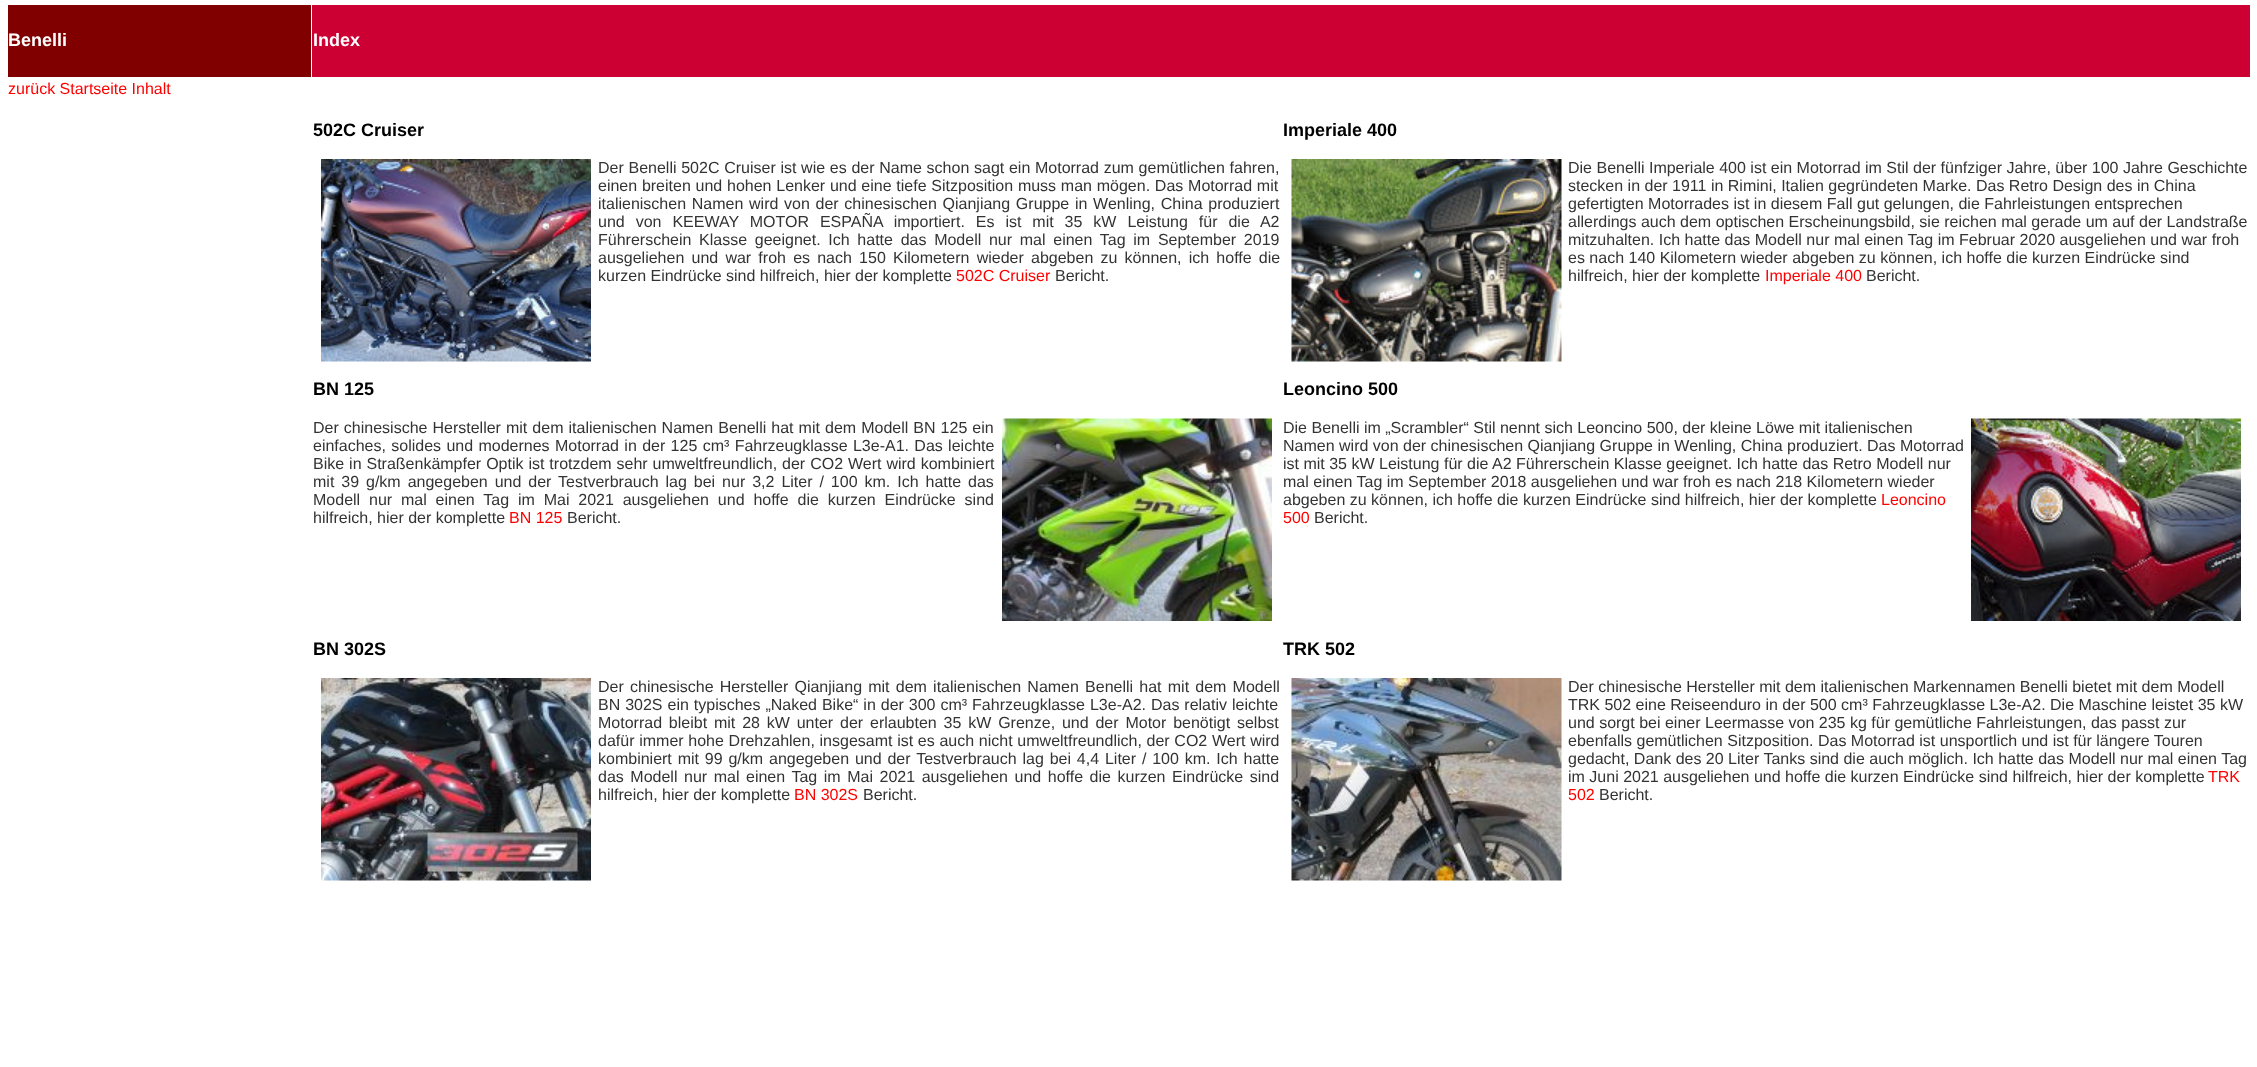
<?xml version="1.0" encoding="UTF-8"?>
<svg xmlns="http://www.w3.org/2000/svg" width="2257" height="1067">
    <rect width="100%" height="100%" fill="#FFFFFF"/>
    <rect x="8" y="5" width="303" height="72" fill="#800000"/>
    <text x="8" y="46" font-family="Liberation Sans" font-size="18" font-weight="700" fill="#FFFFFF">Benelli</text>
    <rect x="312" y="5" width="1938" height="72" fill="#CC0033"/>
    <text x="313" y="46" font-family="Liberation Sans" font-size="18" font-weight="700" fill="#FFFFFF">Index</text>
    <text x="8" y="94" font-family="Liberation Sans" font-size="16" fill="#FF0000">zurück Startseite Inhalt</text>
    <text x="313" y="136" font-family="Liberation Sans" font-size="18" font-weight="700" fill="#000000">502C Cruiser</text>
    <image x="321" y="159" width="270" height="203" href="img_01.png"/>
    <text font-family="Liberation Sans" font-size="16" fill="#333333">
        <tspan x="598" y="173" word-spacing="0.25">Der Benelli 502C Cruiser ist wie es der Name schon sagt ein Motorrad zum gemütlichen fahren,</tspan>
        <tspan x="598" y="191" word-spacing="0.3">einen breiten und hohen Lenker und eine tiefe Sitzposition muss man mögen. Das Motorrad mit</tspan>
        <tspan x="598" y="209" word-spacing="1.25">italienischen Namen wird von der chinesischen Qianjiang Gruppe in Wenling, China produziert</tspan>
        <tspan x="598" y="227" word-spacing="6.5">und von KEEWAY MOTOR ESPAÑA importiert. Es ist mit 35 kW Leistung für die A2</tspan>
        <tspan x="598" y="245" word-spacing="3.25">Führerschein Klasse geeignet. Ich hatte das Modell nur mal einen Tag im September 2019</tspan>
        <tspan x="598" y="263" word-spacing="2.75">ausgeliehen und war froh es nach 150 Kilometern wieder abgeben zu können, ich hoffe die</tspan>
        <tspan x="598" y="281">kurzen Eindrücke sind hilfreich, hier der komplette</tspan>
    </text>
    <text x="956" y="281" font-family="Liberation Sans" font-size="16" fill="#FF0000">502C Cruiser</text>
    <text x="1055" y="281" font-family="Liberation Sans" font-size="16" fill="#333333">Bericht.</text>
    <text x="313" y="395" font-family="Liberation Sans" font-size="18" font-weight="700" fill="#000000">BN 125</text>
    <text x="313" y="433" word-spacing="0.6" font-family="Liberation Sans" font-size="16" fill="#333333">Der chinesische Hersteller mit dem italienischen Namen Benelli hat mit dem Modell BN 125 ein</text>
    <image x="1002" y="418" width="270" height="203" href="img_02.png"/>
    <text font-family="Liberation Sans" font-size="16" fill="#333333">
        <tspan x="313" y="451" word-spacing="0.9">einfaches, solides und modernes Motorrad in der 125 cm³ Fahrzeugklasse L3e-A1. Das leichte</tspan>
        <tspan x="313" y="469" word-spacing="0.5">Bike in Straßenkämpfer Optik ist trotzdem sehr umweltfreundlich, der CO2 Wert wird kombiniert</tspan>
        <tspan x="313" y="487" word-spacing="2.5">mit 39 g/km angegeben und der Testverbrauch lag bei nur 3,2 Liter / 100 km. Ich hatte das</tspan>
        <tspan x="313" y="505" word-spacing="4.4">Modell nur mal einen Tag im Mai 2021 ausgeliehen und hoffe die kurzen Eindrücke sind</tspan>
        <tspan x="313" y="523">hilfreich, hier der komplette</tspan>
    </text>
    <text x="509" y="523" font-family="Liberation Sans" font-size="16" fill="#FF0000">BN 125</text>
    <text x="567" y="523" font-family="Liberation Sans" font-size="16" fill="#333333">Bericht.</text>
    <text x="313" y="655" font-family="Liberation Sans" font-size="18" font-weight="700" fill="#000000">BN 302S</text>
    <image x="321" y="678" width="270" height="203" href="img_03.png"/>
    <text font-family="Liberation Sans" font-size="16" fill="#333333">
        <tspan x="598" y="692" word-spacing="1.75">Der chinesische Hersteller Qianjiang mit dem italienischen Namen Benelli hat mit dem Modell</tspan>
        <tspan x="598" y="710" word-spacing="0.5">BN 302S ein typisches „Naked Bike“ in der 300 cm³ Fahrzeugklasse L3e-A2. Das relativ leichte</tspan>
        <tspan x="598" y="728" word-spacing="2.4">Motorrad bleibt mit 28 kW unter der erlaubten 35 kW Grenze, und der Motor benötigt selbst</tspan>
        <tspan x="598" y="746" word-spacing="0.25">dafür immer hohe Drehzahlen, insgesamt ist es auch nicht umweltfreundlich, der CO2 Wert wird</tspan>
        <tspan x="598" y="764" word-spacing="1.4">kombiniert mit 99 g/km angegeben und der Testverbrauch lag bei 4,4 Liter / 100 km. Ich hatte</tspan>
        <tspan x="598" y="782" word-spacing="2.1">das Modell nur mal einen Tag im Mai 2021 ausgeliehen und hoffe die kurzen Eindrücke sind</tspan>
        <tspan x="598" y="800">hilfreich, hier der komplette</tspan>
    </text>
    <text x="794" y="800" font-family="Liberation Sans" font-size="16" fill="#FF0000">BN 302S</text>
    <text x="863" y="800" font-family="Liberation Sans" font-size="16" fill="#333333">Bericht.</text>
    <text x="1283" y="136" font-family="Liberation Sans" font-size="18" font-weight="700" fill="#000000">Imperiale 400</text>
    <image x="1291" y="159" width="271" height="203" href="img_04.png"/>
    <text font-family="Liberation Sans" font-size="16" fill="#333333">
        <tspan x="1568" y="173">Die Benelli Imperiale 400 ist ein Motorrad im Stil der fünfziger Jahre, über 100 Jahre Geschichte</tspan>
        <tspan x="1568" y="191">stecken in der 1911 in Rimini, Italien gegründeten Marke. Das Retro Design des in China</tspan>
        <tspan x="1568" y="209">gefertigten Motorrades ist in diesem Fall gut gelungen, die Fahrleistungen entsprechen</tspan>
        <tspan x="1568" y="227">allerdings auch dem optischen Erscheinungsbild, sie reichen mal gerade um auf der Landstraße</tspan>
        <tspan x="1568" y="245">mitzuhalten. Ich hatte das Modell nur mal einen Tag im Februar 2020 ausgeliehen und war froh</tspan>
        <tspan x="1568" y="263">es nach 140 Kilometern wieder abgeben zu können, ich hoffe die kurzen Eindrücke sind</tspan>
        <tspan x="1568" y="281">hilfreich, hier der komplette</tspan>
    </text>
    <text x="1765" y="281" font-family="Liberation Sans" font-size="16" fill="#FF0000">Imperiale 400</text>
    <text x="1866" y="281" font-family="Liberation Sans" font-size="16" fill="#333333">Bericht.</text>
    <text x="1283" y="395" font-family="Liberation Sans" font-size="18" font-weight="700" fill="#000000">Leoncino 500</text>
    <text x="1283" y="433" font-family="Liberation Sans" font-size="16" fill="#333333">Die Benelli im „Scrambler“ Stil nennt sich Leoncino 500, der kleine Löwe mit italienischen</text>
    <image x="1971" y="418" width="270" height="203" href="img_05.png"/>
    <text font-family="Liberation Sans" font-size="16" fill="#333333">
        <tspan x="1283" y="451">Namen wird von der chinesischen Qianjiang Gruppe in Wenling, China produziert. Das Motorrad</tspan>
        <tspan x="1283" y="469">ist mit 35 kW Leistung für die A2 Führerschein Klasse geeignet. Ich hatte das Retro Modell nur</tspan>
        <tspan x="1283" y="487">mal einen Tag im September 2018 ausgeliehen und war froh es nach 218 Kilometern wieder</tspan>
        <tspan x="1283" y="505">abgeben zu können, ich hoffe die kurzen Eindrücke sind hilfreich, hier der komplette</tspan>
    </text>
    <text x="1881" y="505" font-family="Liberation Sans" font-size="16" fill="#FF0000">Leoncino</text>
    <text x="1283" y="523" font-family="Liberation Sans" font-size="16" fill="#FF0000">500</text>
    <text x="1314" y="523" font-family="Liberation Sans" font-size="16" fill="#333333">Bericht.</text>
    <text x="1283" y="655" font-family="Liberation Sans" font-size="18" font-weight="700" fill="#000000">TRK 502</text>
    <image x="1291" y="678" width="271" height="203" href="img_06.png"/>
    <text font-family="Liberation Sans" font-size="16" fill="#333333">
        <tspan x="1568" y="692">Der chinesische Hersteller mit dem italienischen Markennamen Benelli bietet mit dem Modell</tspan>
        <tspan x="1568" y="710">TRK 502 eine Reiseenduro in der 500 cm³ Fahrzeugklasse L3e-A2. Die Maschine leistet 35 kW</tspan>
        <tspan x="1568" y="728">und sorgt bei einer Leermasse von 235 kg für gemütliche Fahrleistungen, das passt zur</tspan>
        <tspan x="1568" y="746">ebenfalls gemütlichen Sitzposition. Das Motorrad ist unsportlich und ist für längere Touren</tspan>
        <tspan x="1568" y="764">gedacht, Dank des 20 Liter Tanks sind die auch möglich. Ich hatte das Modell nur mal einen Tag</tspan>
        <tspan x="1568" y="782">im Juni 2021 ausgeliehen und hoffe die kurzen Eindrücke sind hilfreich, hier der komplette</tspan>
    </text>
    <text x="2208" y="782" font-family="Liberation Sans" font-size="16" fill="#FF0000">TRK</text>
    <text x="1568" y="800" font-family="Liberation Sans" font-size="16" fill="#FF0000">502</text>
    <text x="1599" y="800" font-family="Liberation Sans" font-size="16" fill="#333333">Bericht.</text>
</svg>
